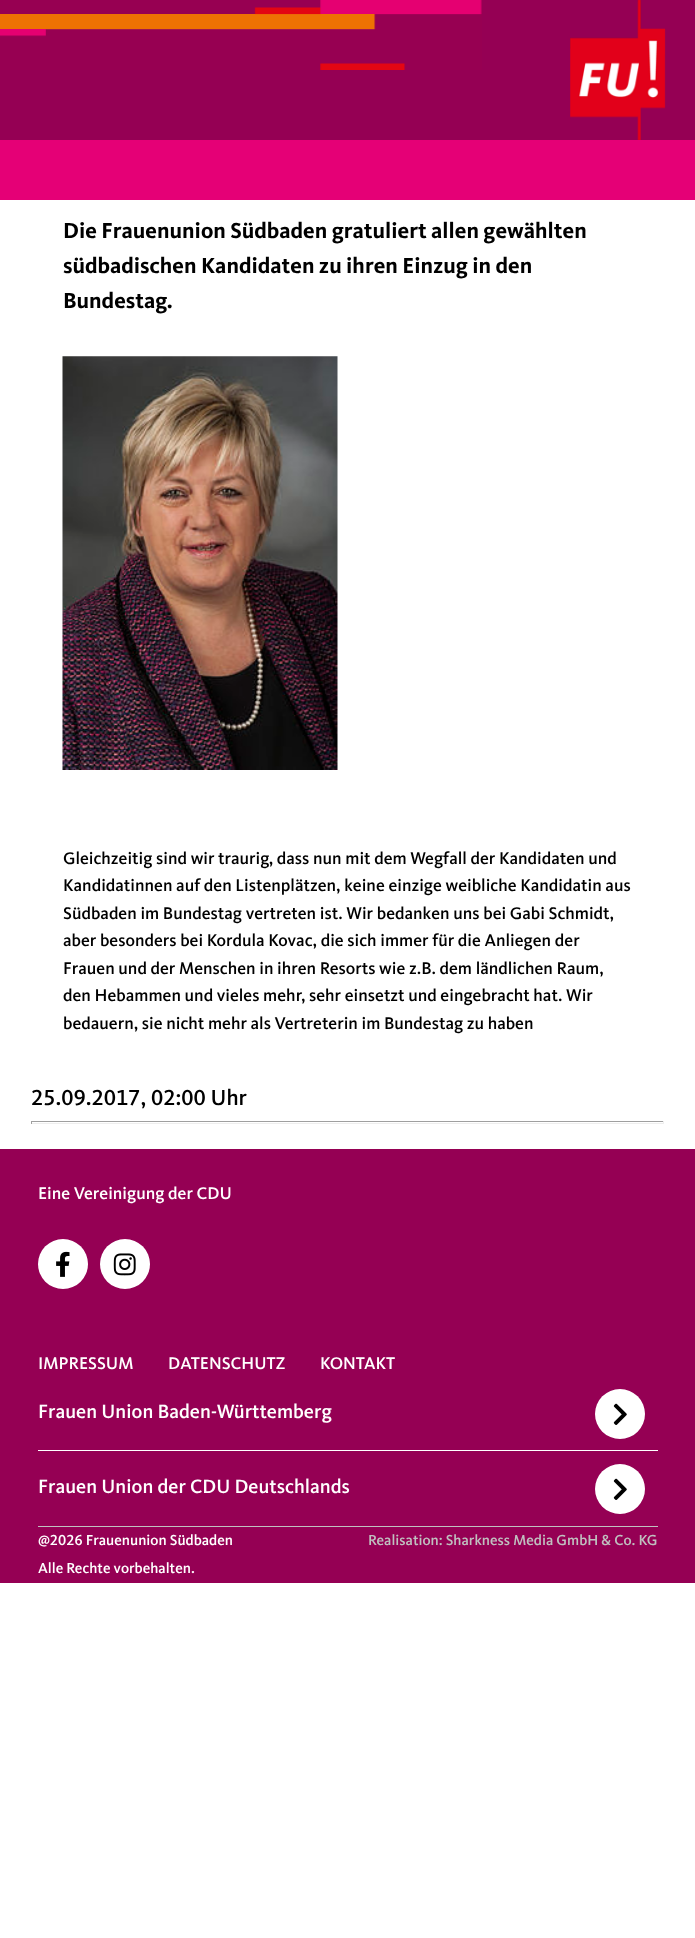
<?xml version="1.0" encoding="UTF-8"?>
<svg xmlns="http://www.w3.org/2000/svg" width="695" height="1938">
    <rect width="100%" height="100%" fill="#FFFFFF"/>
    <rect x="0" y="0" width="695" height="140" fill="#950054"/>
    <image x="0" y="0" width="482" height="70" href="img_01.png"/>
    <image x="570" y="0" width="96" height="140" href="img_02.png"/>
    <rect x="0" y="140" width="695" height="60" fill="#E50076"/>
    <text font-family="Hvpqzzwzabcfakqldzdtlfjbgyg" font-size="22.5" font-weight="700" fill="#000000">
        <tspan x="63" y="238">Die Frauenunion Südbaden gratuliert allen gewählten</tspan>
        <tspan x="63" y="273">südbadischen Kandidaten zu ihren Einzug in den</tspan>
        <tspan x="63" y="308">Bundestag.</tspan>
    </text>
    <image x="62" y="356" width="276" height="414" href="img_03.png"/>
    <text font-family="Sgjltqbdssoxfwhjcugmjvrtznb" font-size="17.5" font-weight="500" fill="#000000">
        <tspan x="63" y="864">Gleichzeitig sind wir traurig, dass nun mit dem Wegfall der Kandidaten und</tspan>
        <tspan x="63" y="891">Kandidatinnen auf den Listenplätzen, keine einzige weibliche Kandidatin aus</tspan>
        <tspan x="63" y="919">Südbaden im Bundestag vertreten ist. Wir bedanken uns bei Gabi Schmidt,</tspan>
        <tspan x="63" y="946">aber besonders bei Kordula Kovac, die sich immer für die Anliegen der</tspan>
        <tspan x="63" y="974">Frauen und der Menschen in ihren Resorts wie z.B. dem ländlichen Raum,</tspan>
        <tspan x="63" y="1001">den Hebammen und vieles mehr, sehr einsetzt und eingebracht hat. Wir</tspan>
        <tspan x="63" y="1029">bedauern, sie nicht mehr als Vertreterin im Bundestag zu haben</tspan>
    </text>
    <text x="31" y="1105" font-family="Sgjltqbdssoxfwhjcugmjvrtznb" font-size="22.5" font-weight="500" fill="#000000">25.09.2017, 02:00 Uhr</text>
    <rect x="31" y="1121" width="633" height="1" fill="#9F9F9F"/>
    <rect x="663" y="1121" width="1" height="3" fill="#EEEEEE"/>
    <rect x="31" y="1123" width="633" height="1" fill="#EEEEEE"/>
    <rect x="31" y="1121" width="1" height="3" fill="#9F9F9F"/>
    <rect x="0" y="1149" width="695" height="434" fill="#950054"/>
    <text x="38" y="1199" font-family="Sgjltqbdssoxfwhjcugmjvrtznb" font-size="17.5" font-weight="500" fill="#FFFFFF">Eine Vereinigung der CDU</text>
    <circle cx="63" cy="1264" r="25" fill="#FFFFFF"/>
    <image x="56" y="1251" width="14" height="26" href="img_04.png"/>
    <circle cx="125" cy="1264" r="25" fill="#FFFFFF"/>
    <image x="113" y="1253" width="23" height="23" href="img_05.png"/>
    <text x="38" y="1369" font-family="Sgjltqbdssoxfwhjcugmjvrtznb" font-size="17.5" font-weight="500" fill="#FFFFFF">IMPRESSUM</text>
    <text x="168" y="1369" font-family="Sgjltqbdssoxfwhjcugmjvrtznb" font-size="17.5" font-weight="500" fill="#FFFFFF">DATENSCHUTZ</text>
    <text x="320" y="1369" font-family="Sgjltqbdssoxfwhjcugmjvrtznb" font-size="17.5" font-weight="500" fill="#FFFFFF">KONTAKT</text>
    <rect x="38" y="1450" width="620" height="1" fill="#FFFFFF"/>
    <text x="38" y="1418" font-family="Sgjltqbdssoxfwhjcugmjvrtznb" font-size="20" font-weight="500" fill="#FFFFFF">Frauen Union Baden-Württemberg</text>
    <circle cx="620" cy="1414" r="25" fill="#FFFFFF"/>
    <image x="613" y="1403" width="14" height="22" href="img_06.png"/>
    <text x="38" y="1493" font-family="Sgjltqbdssoxfwhjcugmjvrtznb" font-size="20" font-weight="500" fill="#FFFFFF">Frauen Union der CDU Deutschlands</text>
    <circle cx="620" cy="1489" r="25" fill="#FFFFFF"/>
    <image x="613" y="1478" width="14" height="22" href="img_06.png"/>
    <rect x="38" y="1526" width="620" height="1" fill="#C0C0C0"/>
    <text font-family="Sgjltqbdssoxfwhjcugmjvrtznb" font-size="15" font-weight="500" fill="#FFFFFF">
        <tspan x="38" y="1545">@2026 Frauenunion Südbaden</tspan>
        <tspan x="38" y="1573">Alle Rechte vorbehalten.</tspan>
    </text>
    <text x="368" y="1545" font-family="Sgjltqbdssoxfwhjcugmjvrtznb" font-size="15" font-weight="500" fill="#C0C0C0">Realisation: Sharkness Media GmbH &amp; Co. KG</text>
</svg>
